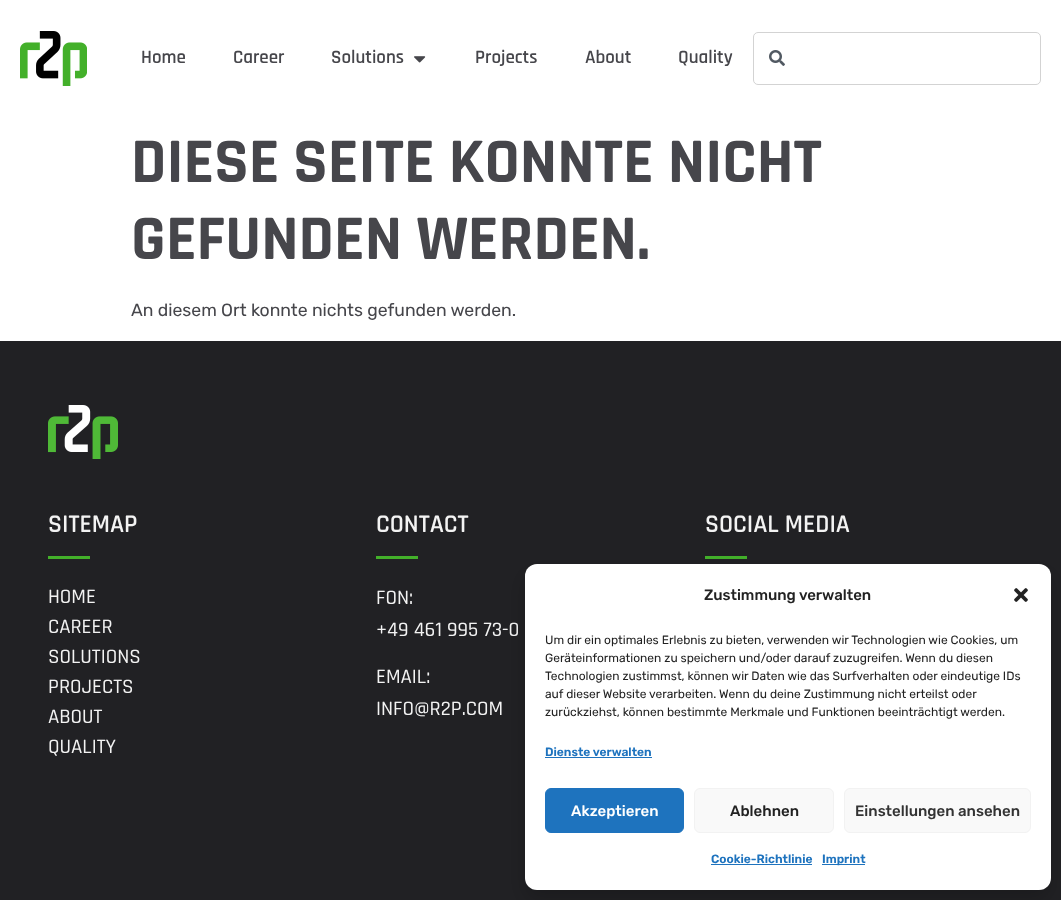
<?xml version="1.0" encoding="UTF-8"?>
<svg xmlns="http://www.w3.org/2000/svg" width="1061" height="900">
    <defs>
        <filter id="blur1" x="-50%" y="-200%" width="200%" height="500%"><feGaussianBlur stdDeviation="10"/></filter>
    </defs>
    <rect width="100%" height="100%" fill="#FFFFFF"/>
    <image x="20" y="31" width="67" height="55" href="img_01.png"/>
    <text x="141" y="63" font-family="Rajdhani" font-size="19" font-weight="600" fill="#46464B">Home</text>
    <text x="233" y="63" font-family="Rajdhani" font-size="19" font-weight="600" fill="#46464B">Career</text>
    <text x="331" y="63" font-family="Rajdhani" font-size="19" font-weight="600" fill="#46464B">Solutions</text>
    <image x="414" y="56" width="12" height="7" href="img_02.png"/>
    <text x="475" y="63" font-family="Rajdhani" font-size="19" font-weight="600" fill="#46464B">Projects</text>
    <text x="585" y="63" font-family="Rajdhani" font-size="19" font-weight="600" fill="#46464B">About</text>
    <text x="678" y="63" font-family="Rajdhani" font-size="19" font-weight="600" fill="#46464B">Quality</text>
    <rect x="753.5" y="32.5" width="287" height="52" rx="4.5" fill="none" stroke="#D3D3D3"/>
    <image x="769" y="50" width="16" height="16" href="img_03.png"/>
    <text font-family="Rajdhani" font-size="64" font-weight="700" fill="#46464B">
        <tspan x="131" y="182">DIESE SEITE KONNTE NICHT</tspan>
        <tspan x="131" y="259">GEFUNDEN WERDEN.</tspan>
    </text>
    <text x="131" y="316" font-family="Rubik" font-size="17.6" fill="#46464B">An diesem Ort konnte nichts gefunden werden.</text>
    <rect x="0" y="341" width="1061" height="559" fill="#212124"/>
    <image x="48" y="405" width="70" height="54" href="img_04.png"/>
    <text x="48" y="532" font-family="Rajdhani" font-size="25.5" font-weight="600" fill="#F3F3F3">SITEMAP</text>
    <rect x="48" y="556" width="42" height="3" fill="#43B02A"/>
    <text font-family="Rajdhani" font-size="20.75" font-weight="500" fill="#F3F3F3">
        <tspan x="48" y="603">HOME</tspan>
        <tspan x="48" y="633">CAREER</tspan>
        <tspan x="48" y="663">SOLUTIONS</tspan>
        <tspan x="48" y="693">PROJECTS</tspan>
        <tspan x="48" y="723">ABOUT</tspan>
        <tspan x="48" y="753">QUALITY</tspan>
    </text>
    <text x="376" y="532" font-family="Rajdhani" font-size="25.5" font-weight="600" fill="#F3F3F3">CONTACT</text>
    <rect x="376" y="556" width="42" height="3" fill="#43B02A"/>
    <text font-family="Rajdhani" font-size="20.75" font-weight="500" fill="#F3F3F3">
        <tspan x="376" y="604">FON:</tspan>
        <tspan x="376" y="636">+49 461 995 73-0</tspan>
    </text>
    <text font-family="Rajdhani" font-size="20.75" font-weight="500" fill="#F3F3F3">
        <tspan x="376" y="683">EMAIL:</tspan>
        <tspan x="376" y="715">INFO@R2P.COM</tspan>
    </text>
    <text x="705" y="532" font-family="Rajdhani" font-size="25.5" font-weight="600" fill="#F3F3F3">SOCIAL MEDIA</text>
    <rect x="705" y="556" width="42" height="3" fill="#43B02A"/>
    <rect x="525" y="574" width="526" height="326" rx="12" fill="#000000" fill-opacity="0.19" filter="url(#blur1)"/>
    <rect x="525" y="564" width="526" height="326" rx="12" fill="#FFFFFF"/>
    <text x="704" y="600" font-family="Rubik" font-size="15" font-weight="500" fill="#222222">Zustimmung verwalten</text>
    <image x="1014" y="588" width="14" height="14" href="img_05.png"/>
    <text font-family="Rubik" font-size="12" fill="#222222">
        <tspan x="545" y="644">Um dir ein optimales Erlebnis zu bieten, verwenden wir Technologien wie Cookies, um</tspan>
        <tspan x="545" y="662">Geräteinformationen zu speichern und/oder darauf zuzugreifen. Wenn du diesen</tspan>
        <tspan x="545" y="680">Technologien zustimmst, können wir Daten wie das Surfverhalten oder eindeutige IDs</tspan>
        <tspan x="545" y="698">auf dieser Website verarbeiten. Wenn du deine Zustimmung nicht erteilst oder</tspan>
        <tspan x="545" y="716">zurückziehst, können bestimmte Merkmale und Funktionen beeinträchtigt werden.</tspan>
    </text>
    <text x="545" y="756" font-family="Rubik" font-size="12" font-weight="600" fill="#1E73BE">Dienste verwalten</text>
    <rect x="545" y="757" width="107" height="1" fill="#1E73BE"/>
    <rect x="545.5" y="788.5" width="138" height="44" rx="5.5" fill="#1E73BE" stroke="#1E73BE"/>
    <text x="571" y="816" font-family="Rubik" font-size="15" font-weight="500" fill="#FFFFFF">Akzeptieren</text>
    <rect x="694.5" y="788.5" width="139" height="44" rx="5.5" fill="#F9F9F9" stroke="#F2F2F2"/>
    <text x="730" y="816" font-family="Rubik" font-size="15" font-weight="500" fill="#222222">Ablehnen</text>
    <rect x="844.5" y="788.5" width="186" height="44" rx="5.5" fill="#F9F9F9" stroke="#F2F2F2"/>
    <text x="855" y="816" font-family="Rubik" font-size="15" font-weight="500" fill="#333333">Einstellungen ansehen</text>
    <text x="711" y="863" font-family="Rubik" font-size="12" font-weight="600" fill="#1E73BE">Cookie-Richtlinie</text>
    <rect x="711" y="864" width="101" height="1" fill="#1E73BE"/>
    <rect x="822" y="864" width="43" height="1" fill="#1E73BE"/>
    <text x="822" y="863" font-family="Rubik" font-size="12" font-weight="600" fill="#1E73BE">Imprint</text>
</svg>
